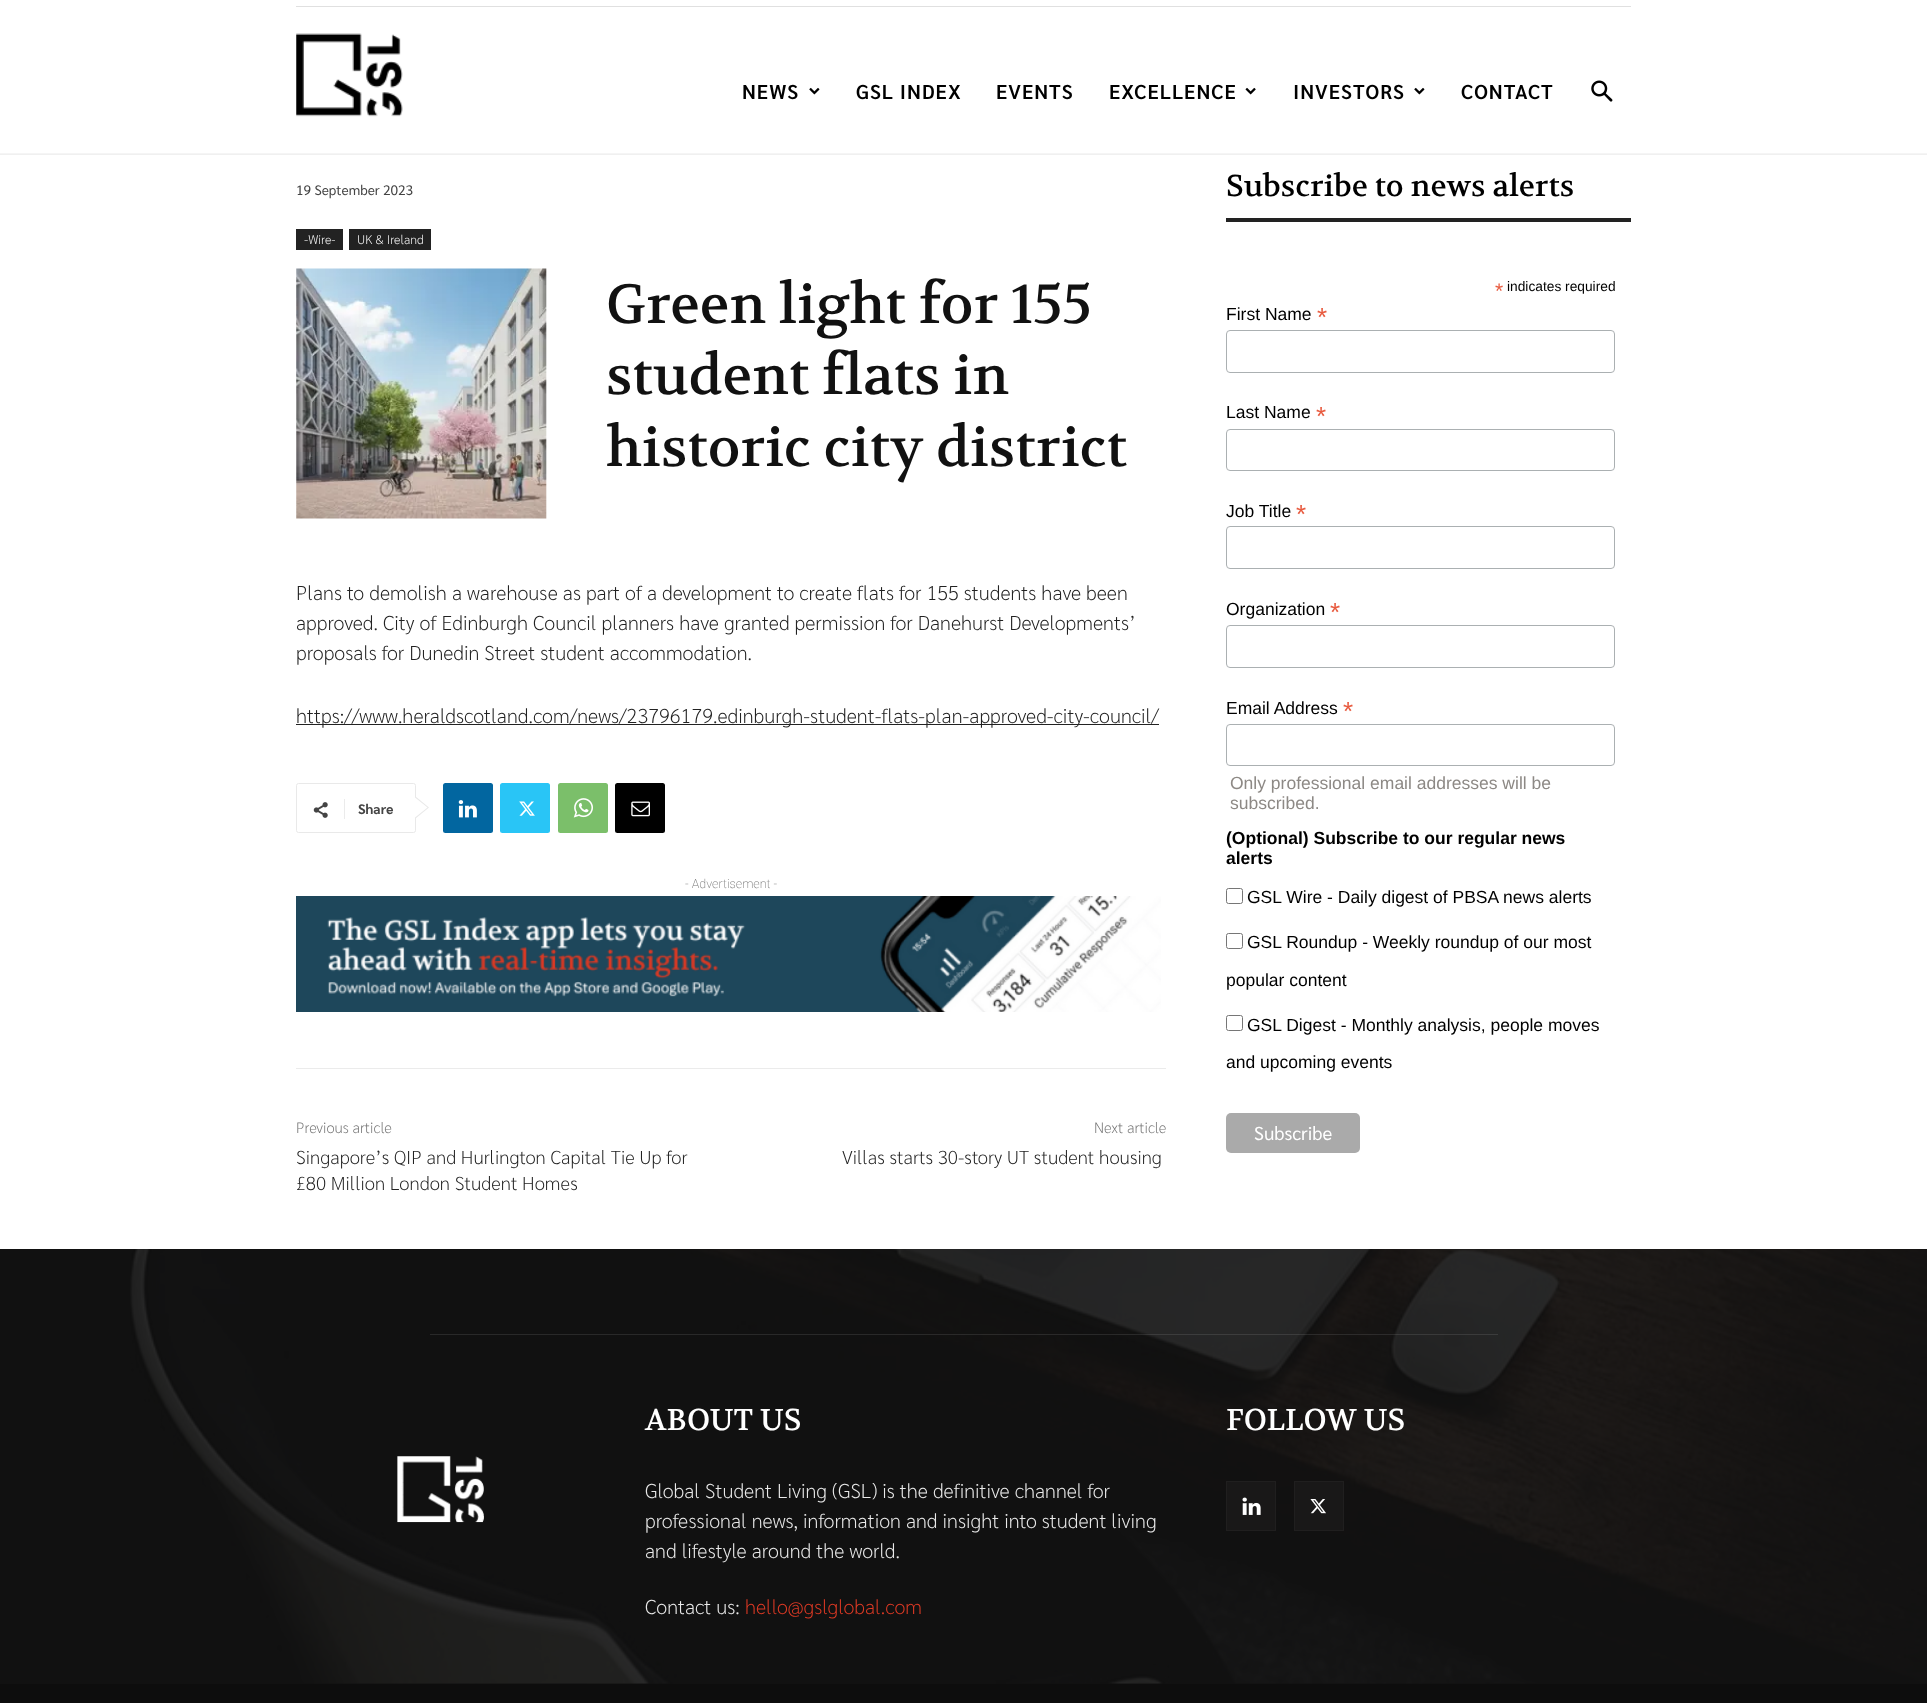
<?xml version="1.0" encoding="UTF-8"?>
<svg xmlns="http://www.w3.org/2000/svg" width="1927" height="1703">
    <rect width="100%" height="100%" fill="#FFFFFF"/>
    <rect x="296" y="6" width="1335" height="1" fill="#E0E0E0"/>
    <image x="296" y="33" width="107" height="84" href="img_01.png"/>
    <text x="742" y="99" font-family="Sarabun" font-size="20" font-weight="600" letter-spacing="1" fill="#000000">NEWS</text>
    <image x="809" y="87" width="11" height="8" href="img_02.png"/>
    <text x="856" y="99" font-family="Sarabun" font-size="20" font-weight="600" letter-spacing="1" fill="#000000">GSL INDEX</text>
    <text x="996" y="99" font-family="Sarabun" font-size="20" font-weight="600" letter-spacing="1" fill="#000000">EVENTS</text>
    <text x="1109" y="99" font-family="Sarabun" font-size="20" font-weight="600" letter-spacing="1" fill="#000000">EXCELLENCE</text>
    <image x="1245" y="87" width="11" height="8" href="img_03.png"/>
    <text x="1293" y="99" font-family="Sarabun" font-size="20" font-weight="600" letter-spacing="1" fill="#000000">INVESTORS</text>
    <image x="1414" y="87" width="11" height="8" href="img_02.png"/>
    <text x="1461" y="99" font-family="Sarabun" font-size="20" font-weight="600" letter-spacing="1" fill="#000000">CONTACT</text>
    <image x="1591" y="80" width="22" height="22" href="img_04.png"/>
    <image x="0" y="153" width="1927" height="2" href="img_05.png"/>
    <text x="296" y="195" font-family="Sarabun" font-size="13.75" fill="#444444">19 September 2023</text>
    <rect x="296" y="229" width="47" height="21" fill="#222222"/>
    <text x="304" y="244" font-family="Sarabun" font-size="12.5" font-weight="200" fill="#FFFFFF">-Wire-</text>
    <rect x="349" y="229" width="82" height="21" fill="#222222"/>
    <text x="357" y="244" font-family="Sarabun" font-size="12.5" font-weight="200" fill="#FFFFFF">UK &amp; Ireland</text>
    <image x="296" y="268" width="251" height="251" href="img_06.png"/>
    <text font-family="Volkhov" font-size="55" fill="#111111">
        <tspan x="606" y="323">Green light for 155</tspan>
        <tspan x="606" y="394">student flats in</tspan>
        <tspan x="606" y="466">historic city district</tspan>
    </text>
    <text font-family="Sarabun" font-size="20" font-weight="200" fill="#222222">
        <tspan x="296" y="600">Plans to demolish a warehouse as part of a development to create flats for 155 students have been</tspan>
        <tspan x="296" y="630">approved. City of Edinburgh Council planners have granted permission for Danehurst Developments’</tspan>
        <tspan x="296" y="660">proposals for Dunedin Street student accommodation.</tspan>
    </text>
    <rect x="296" y="724" width="863" height="1" fill="#222222"/>
    <text x="296" y="723" font-family="Sarabun" font-size="20" font-weight="200" fill="#222222">https://www.heraldscotland.com/news/23796179.edinburgh-student-flats-plan-approved-city-council/</text>
    <rect x="296.5" y="783.5" width="119" height="49" rx="2" fill="none" stroke="#E9E9E9"/>
    <path d="M 415 819 V 796 L 429 807.5 Z" fill="#E9E9E9"/>
    <image x="313" y="802" width="15" height="16" href="img_07.png"/>
    <rect x="344" y="799" width="1" height="20" fill="#EBEBEB"/>
    <text x="358" y="814" font-family="Sarabun" font-size="13.75" font-weight="700" fill="#444444">Share</text>
    <path d="M 415 817.5 V 797.5 L 427.5 807.5 Z" fill="#FFFFFF"/>
    <rect x="443" y="783" width="50" height="50" rx="2.5" fill="#0266A0"/>
    <image x="458" y="800" width="19" height="18" href="img_08.png"/>
    <rect x="500" y="783" width="50" height="50" rx="2.5" fill="#29C5F6"/>
    <image x="519" y="801" width="16" height="15" href="img_09.png"/>
    <rect x="558" y="783" width="50" height="50" rx="2.5" fill="#7BBF6A"/>
    <image x="573" y="798" width="20" height="20" href="img_10.png"/>
    <rect x="615" y="783" width="50" height="50" rx="2.5" fill="#000000"/>
    <image x="631" y="801" width="19" height="16" href="img_11.png"/>
    <text x="685" y="888" font-family="Roboto" font-size="12.5" font-weight="200" fill="#767676">- Advertisement -</text>
    <image x="296" y="896" width="865" height="116" href="img_12.png"/>
    <rect x="296" y="1068" width="870" height="1" fill="#EBEBEB"/>
    <text x="296" y="1133" font-family="Sarabun" font-size="15" font-weight="200" fill="#767676">Previous article</text>
    <text font-family="Sarabun" font-size="18.75" font-weight="200" fill="#222222">
        <tspan x="296" y="1164">Singapore’s QIP and Hurlington Capital Tie Up for</tspan>
        <tspan x="296" y="1190">£80 Million London Student Homes</tspan>
    </text>
    <text x="1094" y="1133" font-family="Sarabun" font-size="15" font-weight="200" fill="#767676">Next article</text>
    <text x="842" y="1164" font-family="Sarabun" font-size="18.75" font-weight="200" fill="#222222">Villas starts 30-story UT student housing</text>
    <text x="1226" y="196" font-family="Volkhov" font-size="30" fill="#000000">Subscribe to news alerts</text>
    <rect x="1226" y="218" width="405" height="4" fill="#222222"/>
    <text x="1495" y="298" font-family="Liberation Sans" font-size="21" fill="#E85C41">*</text>
    <text x="1507" y="291" font-family="Liberation Sans" font-size="13.75" fill="#000000">indicates required</text>
    <text x="1226" y="320" font-family="Liberation Sans" font-size="17.5" fill="#000000">First Name</text>
    <text x="1317" y="326" font-family="Liberation Sans" font-size="26" fill="#E85C41">*</text>
    <rect x="1226.5" y="330.5" width="388" height="42" rx="3.5" fill="none" stroke="#ABB0B2"/>
    <text x="1226" y="418" font-family="Liberation Sans" font-size="17.5" fill="#000000">Last Name</text>
    <text x="1316" y="425" font-family="Liberation Sans" font-size="26" fill="#E85C41">*</text>
    <rect x="1226.5" y="429.5" width="388" height="41" rx="3.5" fill="none" stroke="#ABB0B2"/>
    <text x="1226" y="517" font-family="Liberation Sans" font-size="17.5" fill="#000000">Job Title</text>
    <text x="1296" y="523" font-family="Liberation Sans" font-size="26" fill="#E85C41">*</text>
    <rect x="1226.5" y="526.5" width="388" height="42" rx="3.5" fill="none" stroke="#ABB0B2"/>
    <text x="1226" y="615" font-family="Liberation Sans" font-size="17.5" fill="#000000">Organization</text>
    <text x="1330" y="621" font-family="Liberation Sans" font-size="26" fill="#E85C41">*</text>
    <rect x="1226.5" y="625.5" width="388" height="42" rx="3.5" fill="none" stroke="#ABB0B2"/>
    <text x="1226" y="714" font-family="Liberation Sans" font-size="17.5" fill="#000000">Email Address</text>
    <text x="1343" y="720" font-family="Liberation Sans" font-size="26" fill="#E85C41">*</text>
    <rect x="1226.5" y="724.5" width="388" height="41" rx="3.5" fill="none" stroke="#ABB0B2"/>
    <text font-family="Liberation Sans" font-size="17.5" fill="#8D8985">
        <tspan x="1230" y="789">Only professional email addresses will be</tspan>
        <tspan x="1230" y="809">subscribed.</tspan>
    </text>
    <text font-family="Liberation Sans" font-size="17.5" font-weight="700" fill="#000000">
        <tspan x="1226" y="844">(Optional) Subscribe to our regular news</tspan>
        <tspan x="1226" y="864">alerts</tspan>
    </text>
    <rect x="1226.5" y="888.5" width="16" height="15" rx="2" fill="none" stroke="#767676"/>
    <text x="1247" y="903" font-family="Liberation Sans" font-size="17.5" fill="#000000">GSL Wire - Daily digest of PBSA news alerts</text>
    <rect x="1226.5" y="933.5" width="16" height="15" rx="2" fill="none" stroke="#767676"/>
    <text x="1247" y="948" font-family="Liberation Sans" font-size="17.5" fill="#000000">GSL Roundup - Weekly roundup of our most</text>
    <text x="1226" y="986" font-family="Liberation Sans" font-size="17.5" fill="#000000">popular content</text>
    <rect x="1226.5" y="1015.5" width="16" height="15" rx="2" fill="none" stroke="#767676"/>
    <text x="1247" y="1031" font-family="Liberation Sans" font-size="17.5" fill="#000000">GSL Digest - Monthly analysis, people moves</text>
    <text x="1226" y="1068" font-family="Liberation Sans" font-size="17.5" fill="#000000">and upcoming events</text>
    <rect x="1226" y="1113" width="134" height="40" rx="5" fill="#AAAAAA"/>
    <text x="1254" y="1140" font-family="Sarabun" font-size="18.75" fill="#FFFFFF">Subscribe</text>
    <rect x="0" y="1249" width="1927" height="435" fill="#111111"/>
    <image x="130" y="1249" width="1797" height="435" href="img_13.png"/>
    <rect x="430" y="1334" width="1068" height="1" fill="#FFFFFF" fill-opacity="0.1"/>
    <text x="645" y="1430" font-family="Volkhov" font-size="30" fill="#FFFFFF">ABOUT US</text>
    <text font-family="Sarabun" font-size="20" font-weight="200" fill="#EAEAEA">
        <tspan x="645" y="1498">Global Student Living (GSL) is the definitive channel for</tspan>
        <tspan x="645" y="1528">professional news, information and insight into student living</tspan>
        <tspan x="645" y="1558">and lifestyle around the world.</tspan>
    </text>
    <text x="645" y="1614" font-family="Sarabun" font-size="20" font-weight="200" fill="#EAEAEA">Contact us:</text>
    <text x="745" y="1614" font-family="Sarabun" font-size="20" font-weight="200" fill="#DB3924">hello@gslglobal.com</text>
    <text x="1226" y="1430" font-family="Volkhov" font-size="30" fill="#FFFFFF">FOLLOW US</text>
    <rect x="1227" y="1482" width="48" height="48" fill="#191818"/>
    <image x="1242" y="1497" width="19" height="18" href="img_14.png"/>
    <rect x="1226.5" y="1481.5" width="49" height="49" fill="none" stroke="#201F1F"/>
    <rect x="1295" y="1482" width="48" height="48" fill="#191818"/>
    <image x="1310" y="1499" width="16" height="15" href="img_15.png"/>
    <rect x="1294.5" y="1481.5" width="49" height="49" fill="none" stroke="#201F1F"/>
    <image x="397" y="1456" width="87" height="67" href="img_16.png"/>
    <rect x="0" y="1684" width="1927" height="19" fill="#0D0D0D"/>
</svg>
